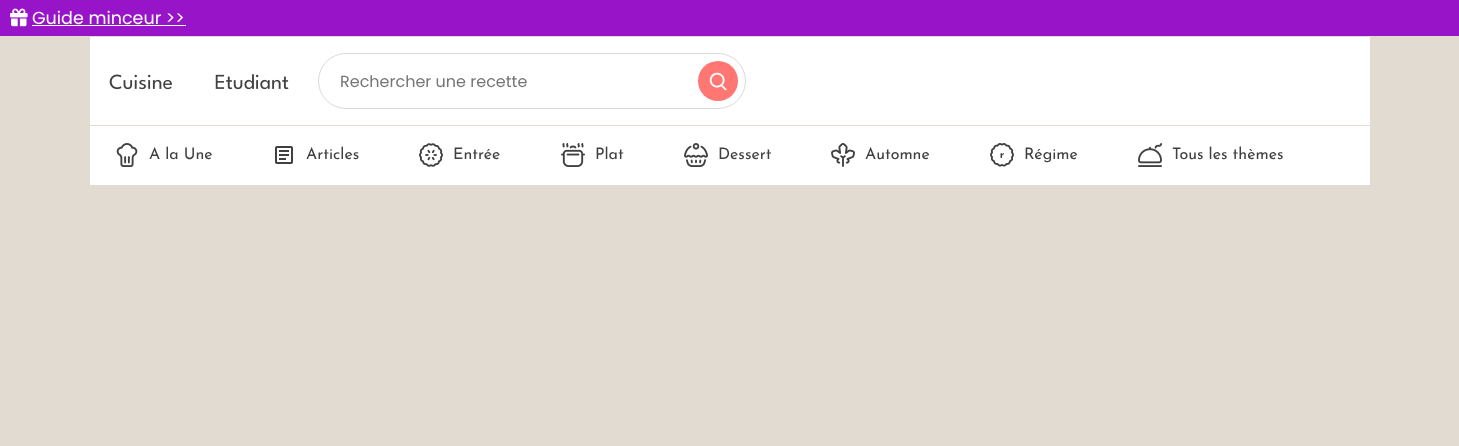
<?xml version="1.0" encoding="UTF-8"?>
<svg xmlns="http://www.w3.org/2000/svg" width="1459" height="446">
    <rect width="100%" height="100%" fill="#E1DBD2"/>
    <rect x="0" y="0" width="1459" height="36" fill="#9814C8"/>
    <image x="10" y="8" width="18" height="19" href="img_01.png"/>
    <text x="32" y="24" font-family="Poppins" font-size="17.5" fill="#FFFFFF">Guide minceur &gt;&gt;</text>
    <rect x="32" y="25" width="154" height="1" fill="#FFFFFF"/>
    <rect x="90" y="37" width="1280" height="88" fill="#FFFFFF"/>
    <image x="109" y="74" width="180" height="16" href="img_02.png"/>
    <rect x="318.5" y="53.5" width="427" height="55" rx="27.5" fill="none" stroke="#D9D9D9"/>
    <text x="340" y="87" font-family="Poppins" font-size="16" fill="#757575">Rechercher une recette</text>
    <circle cx="718" cy="81" r="20" fill="#FF7673"/>
    <image x="709" y="72" width="18" height="19" href="img_03.png"/>
    <rect x="90" y="126" width="1280" height="59" fill="#FFFFFF"/>
    <image x="116" y="143" width="22" height="24" href="img_04.png"/>
    <text x="149" y="159" font-family="Josefin Sans" font-size="16" fill="#404040">A la Une</text>
    <image x="275" y="146" width="18" height="18" href="img_05.png"/>
    <text x="306" y="159" font-family="Josefin Sans" font-size="16" fill="#404040">Articles</text>
    <image x="419" y="143" width="24" height="24" href="img_06.png"/>
    <text x="453" y="159" font-family="Josefin Sans" font-size="16" fill="#404040">Entrée</text>
    <image x="561" y="143" width="24" height="24" href="img_07.png"/>
    <text x="595" y="159" font-family="Josefin Sans" font-size="16" fill="#404040">Plat</text>
    <image x="684" y="143" width="24" height="24" href="img_08.png"/>
    <text x="718" y="159" font-family="Josefin Sans" font-size="16" fill="#404040">Dessert</text>
    <image x="831" y="143" width="24" height="24" href="img_09.png"/>
    <text x="865" y="159" font-family="Josefin Sans" font-size="16" fill="#404040">Automne</text>
    <image x="990" y="143" width="24" height="24" href="img_10.png"/>
    <text x="1024" y="159" font-family="Josefin Sans" font-size="16" fill="#404040">Régime</text>
    <image x="1138" y="143" width="24" height="24" href="img_11.png"/>
    <text x="1172" y="159" font-family="Josefin Sans" font-size="16" fill="#404040">Tous les thèmes</text>
</svg>
